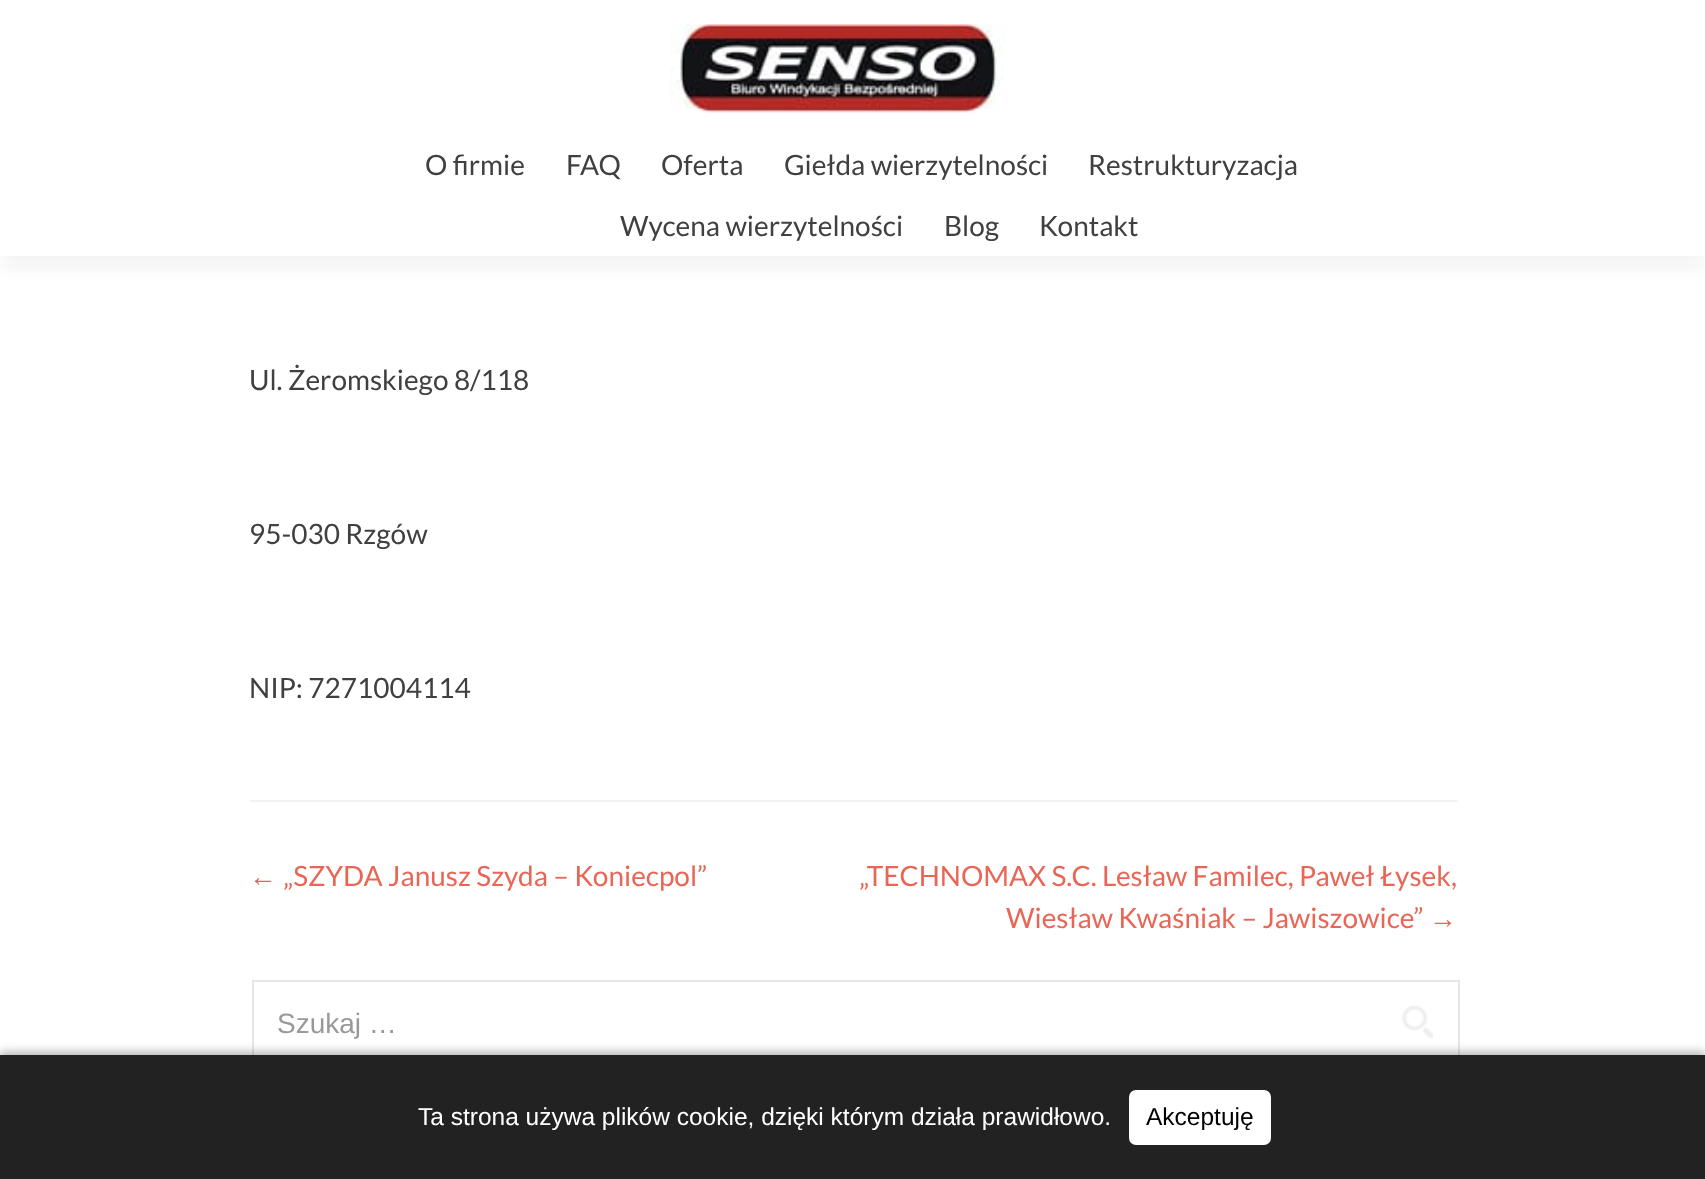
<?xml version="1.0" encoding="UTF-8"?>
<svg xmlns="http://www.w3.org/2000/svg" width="1705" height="1179">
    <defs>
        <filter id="blur1" x="-50%" y="-200%" width="200%" height="500%"><feGaussianBlur stdDeviation="9.5"/></filter>
        <filter id="blur2" x="-50%" y="-200%" width="200%" height="500%"><feGaussianBlur stdDeviation="5"/></filter>
    </defs>
    <rect width="100%" height="100%" fill="#FFFFFF"/>
    <rect x="0" y="9" width="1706" height="255" fill="#323232" fill-opacity="0.08" filter="url(#blur1)"/>
    <rect x="0" y="0" width="1705" height="256" fill="#FFFFFF"/>
    <image x="670" y="24" width="336" height="89" href="img_01.png"/>
    <text x="425" y="175" font-family="Lato" font-size="28" fill="#404040">O firmie</text>
    <text x="566" y="175" font-family="Lato" font-size="28" fill="#404040">FAQ</text>
    <text x="661" y="175" font-family="Lato" font-size="28" fill="#404040">Oferta</text>
    <text x="784" y="175" font-family="Lato" font-size="28" fill="#404040">Giełda wierzytelności</text>
    <text x="1088" y="175" font-family="Lato" font-size="28" fill="#404040">Restrukturyzacja</text>
    <text x="620" y="236" font-family="Lato" font-size="28" fill="#404040">Wycena wierzytelności</text>
    <text x="944" y="236" font-family="Lato" font-size="28" fill="#404040">Blog</text>
    <text x="1039" y="236" font-family="Lato" font-size="28" fill="#404040">Kontakt</text>
    <rect x="250" y="800" width="1208" height="2" fill="#F2F2F2"/>
    <text x="249" y="390" font-family="Lato" font-size="28" fill="#404040">Ul. Żeromskiego 8/118</text>
    <text x="249" y="544" font-family="Lato" font-size="28" fill="#404040">95-030 Rzgów</text>
    <text x="249" y="698" font-family="Lato" font-size="28" fill="#404040">NIP: 7271004114</text>
    <text x="249" y="886" font-family="Liberation Sans" font-size="28" fill="#E96656">←</text>
    <text x="283" y="886" font-family="Lato" font-size="28" fill="#E96656">„SZYDA Janusz Szyda – Koniecpol”</text>
    <text x="859" y="886" font-family="Lato" font-size="28" fill="#E96656">„TECHNOMAX S.C. Lesław Familec, Paweł Łysek,</text>
    <text x="1006" y="928" font-family="Lato" font-size="28" fill="#E96656">Wiesław Kwaśniak – Jawiszowice”</text>
    <text x="1429" y="928" font-family="Liberation Sans" font-size="28" fill="#E96656">→</text>
    <rect x="253" y="981" width="1206" height="86" fill="none" stroke="#E6E6E6" stroke-width="2"/>
    <text x="277" y="1033" font-family="Liberation Sans" font-size="28" fill="#999999">Szukaj …</text>
    <image x="1402" y="1005" width="31" height="33" href="img_02.png"/>
    <rect x="0" y="1052" width="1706" height="124" fill="#000000" fill-opacity="0.3" filter="url(#blur2)"/>
    <rect x="0" y="1055" width="1705" height="124" fill="#222222"/>
    <text x="418" y="1125" font-family="Liberation Sans" font-size="24.5" fill="#FFFFFF">Ta strona używa plików cookie, dzięki którym działa prawidłowo.</text>
    <rect x="1129" y="1090" width="142" height="55" rx="7" fill="#FFFFFF"/>
    <text x="1146" y="1125" font-family="Liberation Sans" font-size="24.5" fill="#000000">Akceptuję</text>
</svg>
